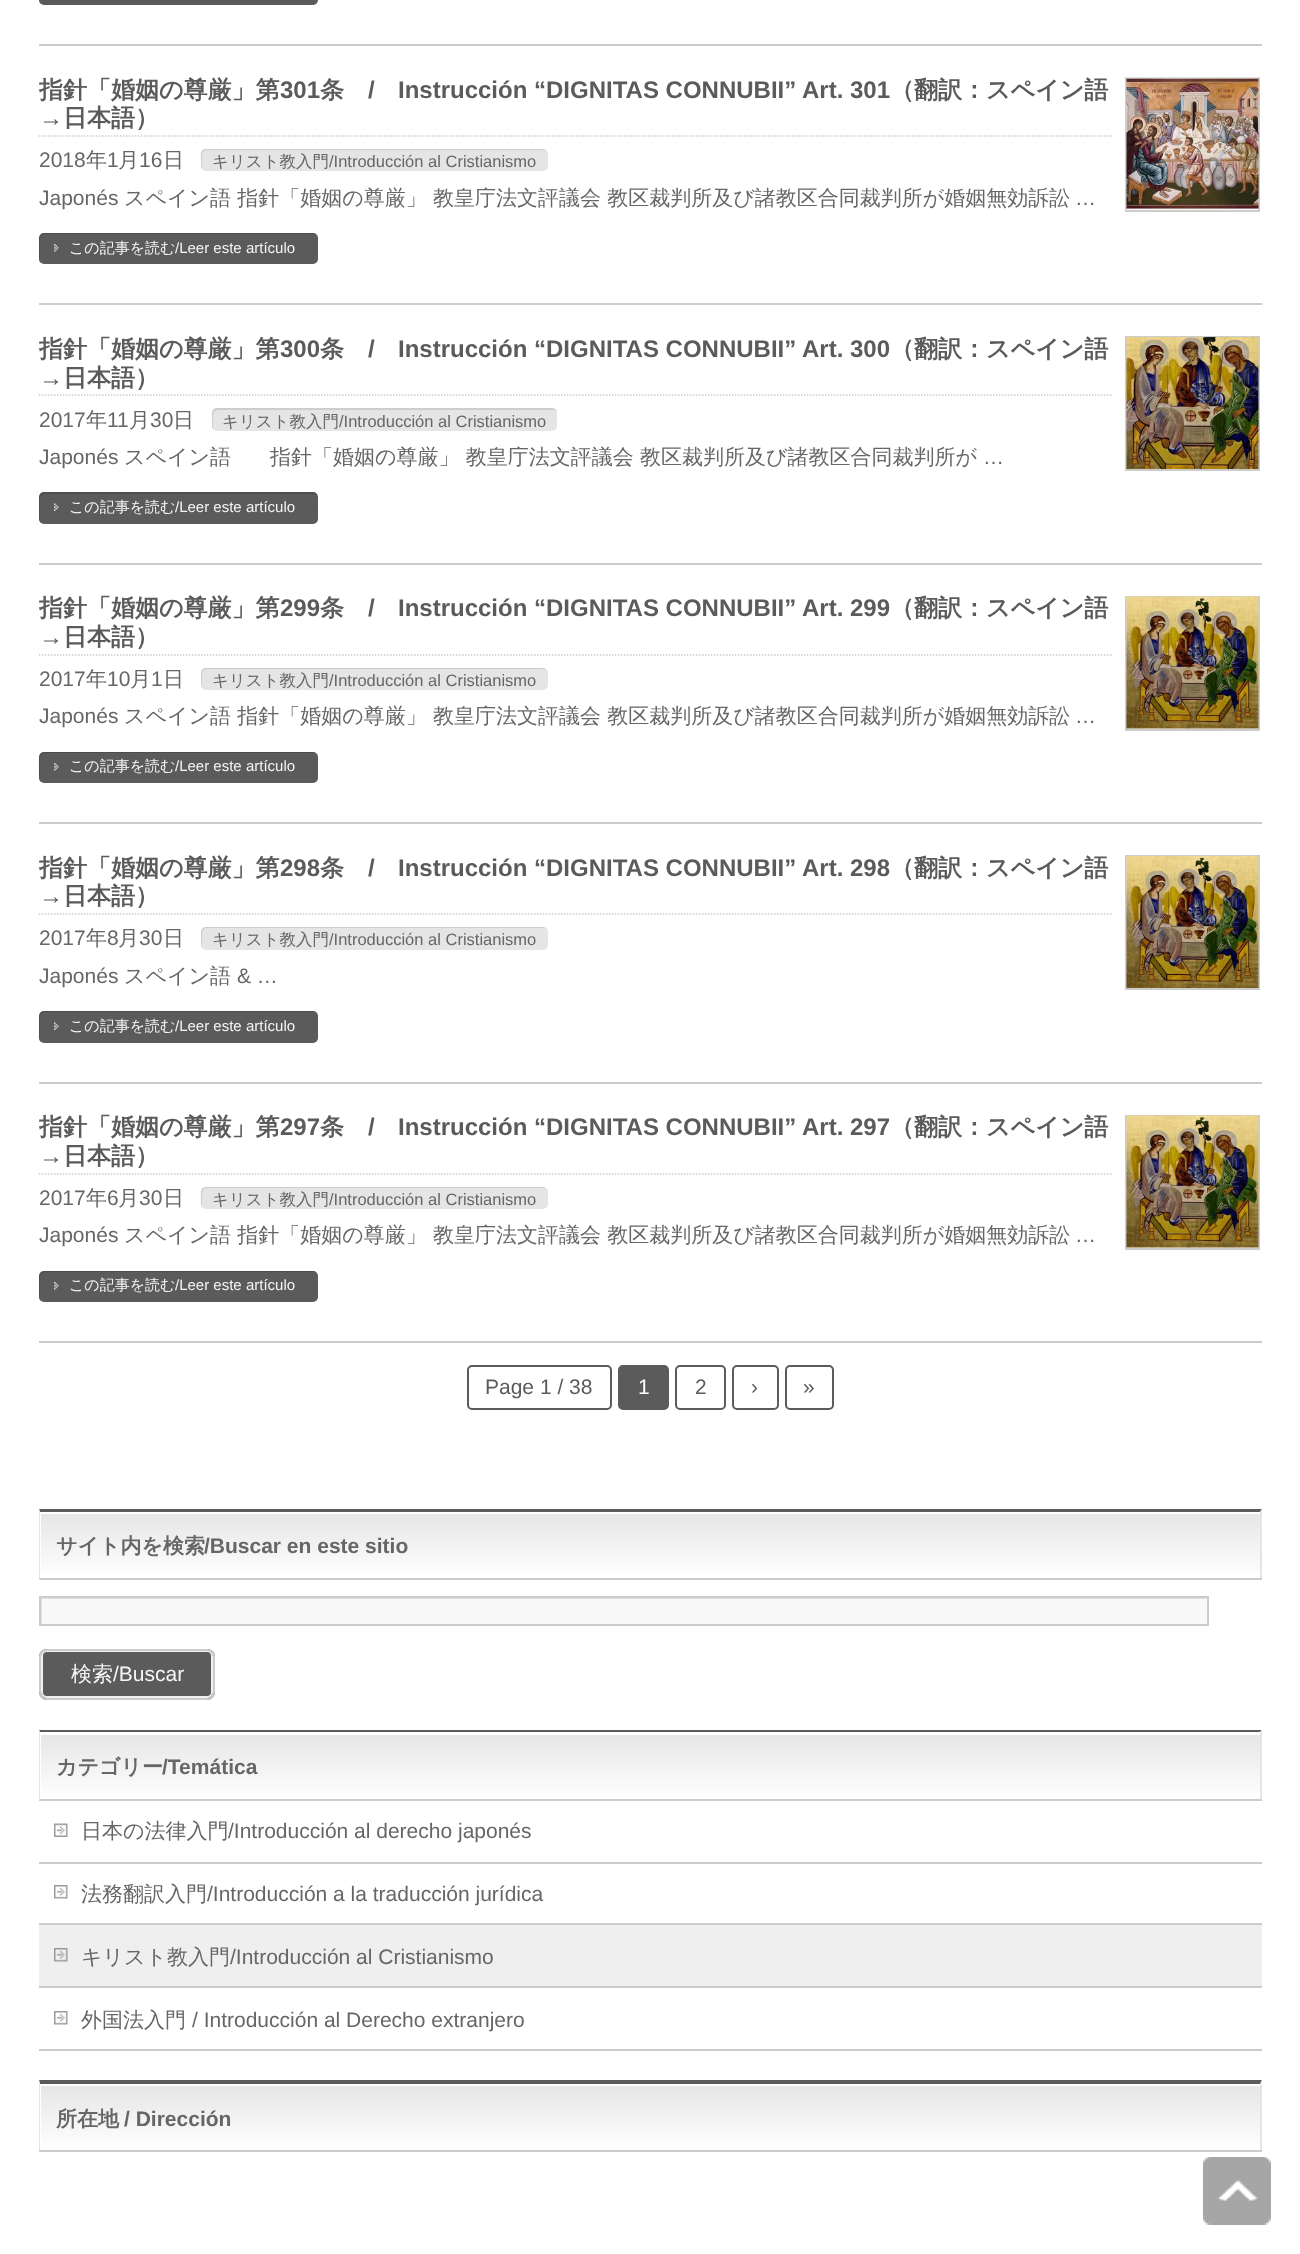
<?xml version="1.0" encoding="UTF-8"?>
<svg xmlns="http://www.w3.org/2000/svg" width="1300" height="2254">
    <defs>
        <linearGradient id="g1" gradientUnits="userSpaceOnUse" x1="41" y1="1512" x2="41" y2="1578"><stop offset="0" stop-color="#E5E5E5"/><stop offset="1" stop-color="#FFFFFF"/></linearGradient>
        <clipPath id="clip1"><rect x="41" y="1598" width="1167" height="27"/></clipPath>
        <linearGradient id="g2" gradientUnits="userSpaceOnUse" x1="41" y1="1733" x2="41" y2="1799"><stop offset="0" stop-color="#E5E5E5"/><stop offset="1" stop-color="#FFFFFF"/></linearGradient>
        <linearGradient id="g3" gradientUnits="userSpaceOnUse" x1="41" y1="2084" x2="41" y2="2150"><stop offset="0" stop-color="#E5E5E5"/><stop offset="1" stop-color="#FFFFFF"/></linearGradient>
    </defs>
    <rect width="100%" height="100%" fill="#FFFFFF"/>
    <rect x="39" y="44" width="1223" height="2" fill="#CCCCCC"/>
    <rect x="39" y="-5" width="279" height="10" rx="5" fill="#5B5B5B"/>
    <path d="M 45 -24 H 316 C 315 -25 314 -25 313 -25 H 44 C 41 -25 39 -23 39 -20 V 0 C 39 2 40 3 41 4 C 39 2 40 -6 40 -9 C 40 -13 38 -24 45 -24 Z" fill="#000000" fill-opacity="0.15"/>
    <rect x="39" y="303" width="1223" height="2" fill="#CCCCCC"/>
    <path d="M 39 136 H 1111.5" fill="none" stroke="#CCCCCC" stroke-width="1.5" stroke-dasharray="1.5 1.5"/>
    <text x="39" y="98" font-family="WenQuanYi Zen Hei" font-size="24" font-weight="700" fill="#5B5B5B">指針「婚姻の尊厳」第</text>
    <text x="280" y="98" font-family="Liberation Sans" font-size="24" font-weight="700" fill="#5B5B5B">301</text>
    <text x="320" y="98" font-family="WenQuanYi Zen Hei" font-size="24" font-weight="700" fill="#5B5B5B">条</text>
    <text x="368" y="98" font-family="Liberation Sans" font-size="24" font-weight="700" fill="#5B5B5B">/</text>
    <text x="398" y="98" font-family="Liberation Sans" font-size="24" font-weight="700" fill="#5B5B5B">Instrucción “DIGNITAS CONNUBII” Art. 301</text>
    <text x="890" y="98" font-family="WenQuanYi Zen Hei" font-size="24" font-weight="700" fill="#5B5B5B">（翻訳：スペイン語</text>
    <text x="39" y="126" font-family="Liberation Sans" font-size="24" font-weight="700" fill="#5B5B5B">→</text>
    <text x="63" y="126" font-family="WenQuanYi Zen Hei" font-size="24" font-weight="700" fill="#5B5B5B">日本語）</text>
    <text x="39" y="167" font-family="Liberation Sans" font-size="21" fill="#666666">2018</text>
    <text x="86" y="167" font-family="WenQuanYi Zen Hei" font-size="21" font-weight="500" fill="#666666">年</text>
    <text x="107" y="167" font-family="Liberation Sans" font-size="21" fill="#666666">1</text>
    <text x="118" y="167" font-family="WenQuanYi Zen Hei" font-size="21" font-weight="500" fill="#666666">月</text>
    <text x="139" y="167" font-family="Liberation Sans" font-size="21" fill="#666666">16</text>
    <text x="163" y="167" font-family="WenQuanYi Zen Hei" font-size="21" font-weight="500" fill="#666666">日</text>
    <rect x="201" y="149" width="347" height="22" rx="5" fill="#E5E5E5"/>
    <path d="M 207 150 H 544 L 547 151 L 544 149 H 206 C 199 149 201 158 201 162 C 201 165 200 168 203 170 C 201 168 202 164 202 161 C 202 157 201 150 207 150 Z" fill="#000000" fill-opacity="0.1"/>
    <text x="212" y="167" font-family="WenQuanYi Zen Hei" font-size="16.5" font-weight="500" fill="#666666">キリスト教入門</text>
    <text x="329" y="167" font-family="Liberation Sans" font-size="16.5" fill="#666666">/Introducción al Cristianismo</text>
    <text x="39" y="205" font-family="Liberation Sans" font-size="21" fill="#666666">Japonés</text>
    <text x="124" y="205" font-family="WenQuanYi Zen Hei" font-size="21" font-weight="500" fill="#666666">スペイン語 指針「婚姻の尊厳」 教皇庁法文評議会 教区裁判所及び諸教区合同裁判所が婚姻無効訴訟</text>
    <text x="1075" y="205" font-family="Liberation Sans" font-size="21" fill="#666666">…</text>
    <rect x="39" y="233" width="279" height="31" rx="5" fill="#5B5B5B"/>
    <image x="54" y="244" width="5" height="8" href="img_01.png"/>
    <path d="M 45 234 H 316 C 315 233 314 233 313 233 H 44 C 41 233 39 235 39 238 V 259 C 39 260 40 262 40 263 V 261 V 238 C 40 236 43 234 45 234 Z" fill="#000000" fill-opacity="0.15"/>
    <text x="69" y="253" font-family="WenQuanYi Zen Hei" font-size="15" font-weight="500" fill="#F5F5F5">この記事を読む</text>
    <text x="175" y="253" font-family="Liberation Sans" font-size="15" fill="#F5F5F5">/Leer este artículo</text>
    <rect x="1126" y="78" width="133" height="133" fill="none" stroke="#CCCCCC" stroke-width="2"/>
    <image x="1126" y="77" width="133" height="133" href="img_02.png"/>
    <rect x="39" y="563" width="1223" height="2" fill="#CCCCCC"/>
    <path d="M 39 395 H 1111.5" fill="none" stroke="#CCCCCC" stroke-width="1.5" stroke-dasharray="1.5 1.5"/>
    <text x="39" y="357" font-family="WenQuanYi Zen Hei" font-size="24" font-weight="700" fill="#5B5B5B">指針「婚姻の尊厳」第</text>
    <text x="280" y="357" font-family="Liberation Sans" font-size="24" font-weight="700" fill="#5B5B5B">300</text>
    <text x="320" y="357" font-family="WenQuanYi Zen Hei" font-size="24" font-weight="700" fill="#5B5B5B">条</text>
    <text x="368" y="357" font-family="Liberation Sans" font-size="24" font-weight="700" fill="#5B5B5B">/</text>
    <text x="398" y="357" font-family="Liberation Sans" font-size="24" font-weight="700" fill="#5B5B5B">Instrucción “DIGNITAS CONNUBII” Art. 300</text>
    <text x="890" y="357" font-family="WenQuanYi Zen Hei" font-size="24" font-weight="700" fill="#5B5B5B">（翻訳：スペイン語</text>
    <text x="39" y="386" font-family="Liberation Sans" font-size="24" font-weight="700" fill="#5B5B5B">→</text>
    <text x="63" y="386" font-family="WenQuanYi Zen Hei" font-size="24" font-weight="700" fill="#5B5B5B">日本語）</text>
    <text x="39" y="427" font-family="Liberation Sans" font-size="21" fill="#666666">2017</text>
    <text x="86" y="427" font-family="WenQuanYi Zen Hei" font-size="21" font-weight="500" fill="#666666">年</text>
    <text x="107" y="427" font-family="Liberation Sans" font-size="21" fill="#666666">11</text>
    <text x="129" y="427" font-family="WenQuanYi Zen Hei" font-size="21" font-weight="500" fill="#666666">月</text>
    <text x="150" y="427" font-family="Liberation Sans" font-size="21" fill="#666666">30</text>
    <text x="173" y="427" font-family="WenQuanYi Zen Hei" font-size="21" font-weight="500" fill="#666666">日</text>
    <rect x="212" y="408" width="345" height="23" rx="5" fill="#E5E5E5"/>
    <path d="M 218 410 H 554 L 557 411 C 556 409 554 408 552 408 H 217 C 214 408 212 410 212 413 V 426 C 212 427 212 428 213 429 V 421 C 213 417 212 410 218 410 Z" fill="#000000" fill-opacity="0.1"/>
    <text x="222" y="427" font-family="WenQuanYi Zen Hei" font-size="16.5" font-weight="500" fill="#666666">キリスト教入門</text>
    <text x="339" y="427" font-family="Liberation Sans" font-size="16.5" fill="#666666">/Introducción al Cristianismo</text>
    <text x="39" y="464" font-family="Liberation Sans" font-size="21" fill="#666666">Japonés</text>
    <text x="124" y="464" font-family="WenQuanYi Zen Hei" font-size="21" font-weight="500" fill="#666666">スペイン語</text>
    <text x="270" y="464" font-family="WenQuanYi Zen Hei" font-size="21" font-weight="500" fill="#666666">指針「婚姻の尊厳」 教皇庁法文評議会 教区裁判所及び諸教区合同裁判所が</text>
    <text x="983" y="464" font-family="Liberation Sans" font-size="21" fill="#666666">…</text>
    <rect x="39" y="492" width="279" height="32" rx="5" fill="#5B5B5B"/>
    <image x="54" y="503" width="5" height="8" href="img_03.png"/>
    <path d="M 45 494 H 315 L 317 495 C 317 493 315 492 313 492 H 44 C 41 492 39 494 39 497 V 519 C 39 521 40 522 41 523 C 39 520 40 512 40 509 C 40 505 38 494 45 494 Z" fill="#000000" fill-opacity="0.15"/>
    <text x="69" y="512" font-family="WenQuanYi Zen Hei" font-size="15" font-weight="500" fill="#F5F5F5">この記事を読む</text>
    <text x="175" y="512" font-family="Liberation Sans" font-size="15" fill="#F5F5F5">/Leer este artículo</text>
    <rect x="1126" y="337" width="133" height="133" fill="none" stroke="#CCCCCC" stroke-width="2"/>
    <image x="1126" y="337" width="133" height="132" href="img_04.png"/>
    <rect x="39" y="822" width="1223" height="2" fill="#CCCCCC"/>
    <path d="M 39 655 H 1111.5" fill="none" stroke="#CCCCCC" stroke-width="1.5" stroke-dasharray="1.5 1.5"/>
    <text x="39" y="616" font-family="WenQuanYi Zen Hei" font-size="24" font-weight="700" fill="#5B5B5B">指針「婚姻の尊厳」第</text>
    <text x="280" y="616" font-family="Liberation Sans" font-size="24" font-weight="700" fill="#5B5B5B">299</text>
    <text x="320" y="616" font-family="WenQuanYi Zen Hei" font-size="24" font-weight="700" fill="#5B5B5B">条</text>
    <text x="368" y="616" font-family="Liberation Sans" font-size="24" font-weight="700" fill="#5B5B5B">/</text>
    <text x="398" y="616" font-family="Liberation Sans" font-size="24" font-weight="700" fill="#5B5B5B">Instrucción “DIGNITAS CONNUBII” Art. 299</text>
    <text x="890" y="616" font-family="WenQuanYi Zen Hei" font-size="24" font-weight="700" fill="#5B5B5B">（翻訳：スペイン語</text>
    <text x="39" y="645" font-family="Liberation Sans" font-size="24" font-weight="700" fill="#5B5B5B">→</text>
    <text x="63" y="645" font-family="WenQuanYi Zen Hei" font-size="24" font-weight="700" fill="#5B5B5B">日本語）</text>
    <text x="39" y="686" font-family="Liberation Sans" font-size="21" fill="#666666">2017</text>
    <text x="86" y="686" font-family="WenQuanYi Zen Hei" font-size="21" font-weight="500" fill="#666666">年</text>
    <text x="107" y="686" font-family="Liberation Sans" font-size="21" fill="#666666">10</text>
    <text x="130" y="686" font-family="WenQuanYi Zen Hei" font-size="21" font-weight="500" fill="#666666">月</text>
    <text x="151" y="686" font-family="Liberation Sans" font-size="21" fill="#666666">1</text>
    <text x="163" y="686" font-family="WenQuanYi Zen Hei" font-size="21" font-weight="500" fill="#666666">日</text>
    <rect x="201" y="668" width="347" height="22" rx="5" fill="#E5E5E5"/>
    <path d="M 207 669 H 544 L 547 670 C 546 669 544 668 543 668 H 206 C 203 668 201 670 201 673 V 685 C 201 686 202 688 202 689 C 201 686 202 683 202 680 C 202 677 201 669 207 669 Z" fill="#000000" fill-opacity="0.1"/>
    <text x="212" y="686" font-family="WenQuanYi Zen Hei" font-size="16.5" font-weight="500" fill="#666666">キリスト教入門</text>
    <text x="329" y="686" font-family="Liberation Sans" font-size="16.5" fill="#666666">/Introducción al Cristianismo</text>
    <text x="39" y="723" font-family="Liberation Sans" font-size="21" fill="#666666">Japonés</text>
    <text x="124" y="723" font-family="WenQuanYi Zen Hei" font-size="21" font-weight="500" fill="#666666">スペイン語 指針「婚姻の尊厳」 教皇庁法文評議会 教区裁判所及び諸教区合同裁判所が婚姻無効訴訟</text>
    <text x="1075" y="723" font-family="Liberation Sans" font-size="21" fill="#666666">…</text>
    <rect x="39" y="752" width="279" height="31" rx="5" fill="#5B5B5B"/>
    <image x="54" y="763" width="5" height="8" href="img_01.png"/>
    <path d="M 45 753 H 316 L 313 752 H 44 C 37 752 39 763 39 768 C 39 771 38 779 41 782 C 39 780 40 772 40 769 C 40 765 38 753 45 753 Z" fill="#000000" fill-opacity="0.15"/>
    <text x="69" y="771" font-family="WenQuanYi Zen Hei" font-size="15" font-weight="500" fill="#F5F5F5">この記事を読む</text>
    <text x="175" y="771" font-family="Liberation Sans" font-size="15" fill="#F5F5F5">/Leer este artículo</text>
    <rect x="1126" y="597" width="133" height="133" fill="none" stroke="#CCCCCC" stroke-width="2"/>
    <image x="1126" y="596" width="133" height="133" href="img_05.png"/>
    <rect x="39" y="1082" width="1223" height="2" fill="#CCCCCC"/>
    <path d="M 39 914 H 1111.5" fill="none" stroke="#CCCCCC" stroke-width="1.5" stroke-dasharray="1.5 1.5"/>
    <text x="39" y="876" font-family="WenQuanYi Zen Hei" font-size="24" font-weight="700" fill="#5B5B5B">指針「婚姻の尊厳」第</text>
    <text x="280" y="876" font-family="Liberation Sans" font-size="24" font-weight="700" fill="#5B5B5B">298</text>
    <text x="320" y="876" font-family="WenQuanYi Zen Hei" font-size="24" font-weight="700" fill="#5B5B5B">条</text>
    <text x="368" y="876" font-family="Liberation Sans" font-size="24" font-weight="700" fill="#5B5B5B">/</text>
    <text x="398" y="876" font-family="Liberation Sans" font-size="24" font-weight="700" fill="#5B5B5B">Instrucción “DIGNITAS CONNUBII” Art. 298</text>
    <text x="890" y="876" font-family="WenQuanYi Zen Hei" font-size="24" font-weight="700" fill="#5B5B5B">（翻訳：スペイン語</text>
    <text x="39" y="904" font-family="Liberation Sans" font-size="24" font-weight="700" fill="#5B5B5B">→</text>
    <text x="63" y="904" font-family="WenQuanYi Zen Hei" font-size="24" font-weight="700" fill="#5B5B5B">日本語）</text>
    <text x="39" y="945" font-family="Liberation Sans" font-size="21" fill="#666666">2017</text>
    <text x="86" y="945" font-family="WenQuanYi Zen Hei" font-size="21" font-weight="500" fill="#666666">年</text>
    <text x="107" y="945" font-family="Liberation Sans" font-size="21" fill="#666666">8</text>
    <text x="118" y="945" font-family="WenQuanYi Zen Hei" font-size="21" font-weight="500" fill="#666666">月</text>
    <text x="139" y="945" font-family="Liberation Sans" font-size="21" fill="#666666">30</text>
    <text x="163" y="945" font-family="WenQuanYi Zen Hei" font-size="21" font-weight="500" fill="#666666">日</text>
    <rect x="201" y="927" width="347" height="23" rx="5" fill="#E5E5E5"/>
    <path d="M 207 928 H 544 C 545 928 546 929 547 929 C 546 928 545 927 543 927 H 206 C 203 927 201 929 201 932 V 945 C 201 947 202 948 203 949 C 201 947 202 943 202 940 C 202 936 201 928 207 928 Z" fill="#000000" fill-opacity="0.1"/>
    <text x="212" y="945" font-family="WenQuanYi Zen Hei" font-size="16.5" font-weight="500" fill="#666666">キリスト教入門</text>
    <text x="329" y="945" font-family="Liberation Sans" font-size="16.5" fill="#666666">/Introducción al Cristianismo</text>
    <text x="39" y="983" font-family="Liberation Sans" font-size="21" fill="#666666">Japonés</text>
    <text x="124" y="983" font-family="WenQuanYi Zen Hei" font-size="21" font-weight="500" fill="#666666">スペイン語</text>
    <text x="237" y="983" font-family="Liberation Sans" font-size="21" fill="#666666">&amp; …</text>
    <rect x="39" y="1011" width="279" height="32" rx="5" fill="#5B5B5B"/>
    <image x="54" y="1022" width="5" height="8" href="img_03.png"/>
    <path d="M 45 1012 H 315 H 317 C 316 1012 314 1011 313 1011 H 44 C 41 1011 39 1013 39 1016 V 1038 C 39 1040 40 1041 41 1042 C 39 1039 40 1031 40 1028 C 40 1025 38 1012 45 1012 Z" fill="#000000" fill-opacity="0.15"/>
    <text x="69" y="1031" font-family="WenQuanYi Zen Hei" font-size="15" font-weight="500" fill="#F5F5F5">この記事を読む</text>
    <text x="175" y="1031" font-family="Liberation Sans" font-size="15" fill="#F5F5F5">/Leer este artículo</text>
    <rect x="1126" y="856" width="133" height="133" fill="none" stroke="#CCCCCC" stroke-width="2"/>
    <image x="1126" y="856" width="133" height="132" href="img_06.png"/>
    <rect x="39" y="1341" width="1223" height="2" fill="#CCCCCC"/>
    <path d="M 39 1174 H 1111.5" fill="none" stroke="#CCCCCC" stroke-width="1.5" stroke-dasharray="1.5 1.5"/>
    <text x="39" y="1135" font-family="WenQuanYi Zen Hei" font-size="24" font-weight="700" fill="#5B5B5B">指針「婚姻の尊厳」第</text>
    <text x="280" y="1135" font-family="Liberation Sans" font-size="24" font-weight="700" fill="#5B5B5B">297</text>
    <text x="320" y="1135" font-family="WenQuanYi Zen Hei" font-size="24" font-weight="700" fill="#5B5B5B">条</text>
    <text x="368" y="1135" font-family="Liberation Sans" font-size="24" font-weight="700" fill="#5B5B5B">/</text>
    <text x="398" y="1135" font-family="Liberation Sans" font-size="24" font-weight="700" fill="#5B5B5B">Instrucción “DIGNITAS CONNUBII” Art. 297</text>
    <text x="890" y="1135" font-family="WenQuanYi Zen Hei" font-size="24" font-weight="700" fill="#5B5B5B">（翻訳：スペイン語</text>
    <text x="39" y="1164" font-family="Liberation Sans" font-size="24" font-weight="700" fill="#5B5B5B">→</text>
    <text x="63" y="1164" font-family="WenQuanYi Zen Hei" font-size="24" font-weight="700" fill="#5B5B5B">日本語）</text>
    <text x="39" y="1205" font-family="Liberation Sans" font-size="21" fill="#666666">2017</text>
    <text x="86" y="1205" font-family="WenQuanYi Zen Hei" font-size="21" font-weight="500" fill="#666666">年</text>
    <text x="107" y="1205" font-family="Liberation Sans" font-size="21" fill="#666666">6</text>
    <text x="118" y="1205" font-family="WenQuanYi Zen Hei" font-size="21" font-weight="500" fill="#666666">月</text>
    <text x="139" y="1205" font-family="Liberation Sans" font-size="21" fill="#666666">30</text>
    <text x="163" y="1205" font-family="WenQuanYi Zen Hei" font-size="21" font-weight="500" fill="#666666">日</text>
    <rect x="201" y="1187" width="347" height="22" rx="5" fill="#E5E5E5"/>
    <path d="M 207 1188 H 544 L 547 1189 L 544 1187 H 206 C 199 1187 201 1196 201 1200 C 201 1203 200 1206 203 1208 C 201 1206 202 1202 202 1199 C 202 1195 201 1188 207 1188 Z" fill="#000000" fill-opacity="0.1"/>
    <text x="212" y="1205" font-family="WenQuanYi Zen Hei" font-size="16.5" font-weight="500" fill="#666666">キリスト教入門</text>
    <text x="329" y="1205" font-family="Liberation Sans" font-size="16.5" fill="#666666">/Introducción al Cristianismo</text>
    <text x="39" y="1242" font-family="Liberation Sans" font-size="21" fill="#666666">Japonés</text>
    <text x="124" y="1242" font-family="WenQuanYi Zen Hei" font-size="21" font-weight="500" fill="#666666">スペイン語 指針「婚姻の尊厳」 教皇庁法文評議会 教区裁判所及び諸教区合同裁判所が婚姻無効訴訟</text>
    <text x="1075" y="1242" font-family="Liberation Sans" font-size="21" fill="#666666">…</text>
    <rect x="39" y="1271" width="279" height="31" rx="5" fill="#5B5B5B"/>
    <image x="54" y="1282" width="5" height="8" href="img_01.png"/>
    <path d="M 45 1272 H 316 C 315 1271 314 1271 313 1271 H 44 C 41 1271 39 1273 39 1276 V 1297 C 39 1298 40 1300 40 1301 V 1299 V 1276 C 40 1274 43 1272 45 1272 Z" fill="#000000" fill-opacity="0.15"/>
    <text x="69" y="1290" font-family="WenQuanYi Zen Hei" font-size="15" font-weight="500" fill="#F5F5F5">この記事を読む</text>
    <text x="175" y="1290" font-family="Liberation Sans" font-size="15" fill="#F5F5F5">/Leer este artículo</text>
    <rect x="1126" y="1116" width="133" height="133" fill="none" stroke="#CCCCCC" stroke-width="2"/>
    <image x="1126" y="1115" width="133" height="133" href="img_05.png"/>
    <rect x="468" y="1366" width="143" height="43" rx="4" fill="none" stroke="#5B5B5B" stroke-width="2"/>
    <text x="485" y="1394" font-family="Liberation Sans" font-size="21" fill="#5B5B5B">Page 1 / 38</text>
    <rect x="619" y="1366" width="49" height="43" rx="4" fill="#5B5B5B" stroke="#5B5B5B" stroke-width="2"/>
    <text x="638" y="1394" font-family="Liberation Sans" font-size="21" fill="#FFFFFF">1</text>
    <rect x="676" y="1366" width="49" height="43" rx="4" fill="none" stroke="#5B5B5B" stroke-width="2"/>
    <text x="695" y="1394" font-family="Liberation Sans" font-size="21" fill="#5B5B5B">2</text>
    <rect x="733" y="1366" width="45" height="43" rx="4" fill="none" stroke="#5B5B5B" stroke-width="2"/>
    <text x="751" y="1394" font-family="Liberation Sans" font-size="21" fill="#5B5B5B">›</text>
    <rect x="786" y="1366" width="47" height="43" rx="4" fill="none" stroke="#5B5B5B" stroke-width="2"/>
    <text x="803" y="1394" font-family="Liberation Sans" font-size="21" fill="#5B5B5B">»</text>
    <rect x="41" y="1514" width="1219" height="58" fill="url(#g1)"/>
    <path d="M 39 1509 H 1262 L 1260 1512 H 40 Z" fill="#5B5B5B"/>
    <path d="M 1262 1509 V 1580 L 1260 1578 V 1512 Z" fill="#E5E5E5"/>
    <rect x="39" y="1578" width="1223" height="2" fill="#CCCCCC"/>
    <path d="M 39 1580 V 1509 L 40 1512 V 1578 Z" fill="#E5E5E5"/>
    <text x="56" y="1553" font-family="WenQuanYi Zen Hei" font-size="21" font-weight="700" fill="#666666">サイト内を検索</text>
    <text x="204" y="1553" font-family="Liberation Sans" font-size="21" font-weight="700" fill="#666666">/Buscar en este sitio</text>
    <rect x="42" y="1599" width="1165" height="25" fill="#F9F9F9"/>
    <g clip-path="url(#clip1)">
        <path d="M -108 1449 H 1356 V 1773 H -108 Z M 42 1599 H 1209 V 1626 H 42 Z" fill="#E0E0E0" fill-rule="evenodd"/>
    </g>
    <rect x="40" y="1597" width="1168" height="28" fill="none" stroke="#CCCCCC" stroke-width="2"/>
    <rect x="39" y="1649" width="176" height="51" rx="8" fill="#5B5B5B"/>
    <rect x="42" y="1651" width="170" height="46" rx="5" fill="none" stroke="#EFEFEF" stroke-width="2"/>
    <rect x="40" y="1650" width="174" height="49" rx="7" fill="none" stroke="#CCCCCC" stroke-width="2"/>
    <text x="71" y="1681" font-family="WenQuanYi Zen Hei" font-size="21" font-weight="500" fill="#F5F5F5">検索</text>
    <text x="113" y="1681" font-family="Liberation Sans" font-size="21" fill="#F5F5F5">/Buscar</text>
    <rect x="41" y="1735" width="1219" height="58" fill="url(#g2)"/>
    <path d="M 39 1730 H 1262 L 1260 1732 H 40 Z" fill="#5B5B5B"/>
    <path d="M 1262 1730 V 1800 L 1260 1798 V 1732 Z" fill="#E5E5E5"/>
    <rect x="39" y="1799" width="1223" height="2" fill="#CCCCCC"/>
    <path d="M 39 1800 V 1730 L 40 1732 V 1798 Z" fill="#E5E5E5"/>
    <text x="56" y="1774" font-family="WenQuanYi Zen Hei" font-size="21" font-weight="700" fill="#666666">カテゴリー</text>
    <text x="162" y="1774" font-family="Liberation Sans" font-size="21" font-weight="700" fill="#666666">/Temática</text>
    <rect x="39" y="1862" width="1223" height="2" fill="#CCCCCC"/>
    <image x="54" y="1823" width="14" height="14" href="img_07.png"/>
    <text x="81" y="1838" font-family="WenQuanYi Zen Hei" font-size="21" font-weight="500" fill="#666666">日本の法律入門</text>
    <text x="228" y="1838" font-family="Liberation Sans" font-size="21" fill="#666666">/Introducción al derecho japonés</text>
    <rect x="39" y="1923" width="1223" height="2" fill="#CCCCCC"/>
    <image x="54" y="1885" width="14" height="14" href="img_08.png"/>
    <text x="81" y="1901" font-family="WenQuanYi Zen Hei" font-size="21" font-weight="500" fill="#666666">法務翻訳入門</text>
    <text x="207" y="1901" font-family="Liberation Sans" font-size="21" fill="#666666">/Introducción a la traducción jurídica</text>
    <rect x="39" y="1986" width="1223" height="2" fill="#CCCCCC"/>
    <rect x="39" y="1925" width="1223" height="61" fill="#EFEFEF"/>
    <image x="54" y="1948" width="14" height="14" href="img_09.png"/>
    <text x="81" y="1964" font-family="WenQuanYi Zen Hei" font-size="21" font-weight="500" fill="#666666">キリスト教入門</text>
    <text x="230" y="1964" font-family="Liberation Sans" font-size="21" fill="#666666">/Introducción al Cristianismo</text>
    <rect x="39" y="2049" width="1223" height="2" fill="#CCCCCC"/>
    <image x="54" y="2011" width="14" height="14" href="img_08.png"/>
    <text x="81" y="2027" font-family="WenQuanYi Zen Hei" font-size="21" font-weight="500" fill="#666666">外国法入門</text>
    <text x="192" y="2027" font-family="Liberation Sans" font-size="21" fill="#666666">/ Introducción al Derecho extranjero</text>
    <rect x="41" y="2086" width="1219" height="58" fill="url(#g3)"/>
    <path d="M 39 2080 H 1262 L 1260 2084 H 40 Z" fill="#5B5B5B"/>
    <path d="M 1262 2080 V 2151 L 1260 2150 V 2084 Z" fill="#E5E5E5"/>
    <rect x="39" y="2150" width="1223" height="2" fill="#CCCCCC"/>
    <path d="M 39 2151 V 2080 L 40 2084 V 2150 Z" fill="#E5E5E5"/>
    <text x="56" y="2126" font-family="WenQuanYi Zen Hei" font-size="21" font-weight="700" fill="#666666">所在地</text>
    <text x="124" y="2126" font-family="Liberation Sans" font-size="21" font-weight="700" fill="#666666">/ Dirección</text>
    <image x="1203" y="2157" width="68" height="68" href="img_10.png"/>
</svg>
